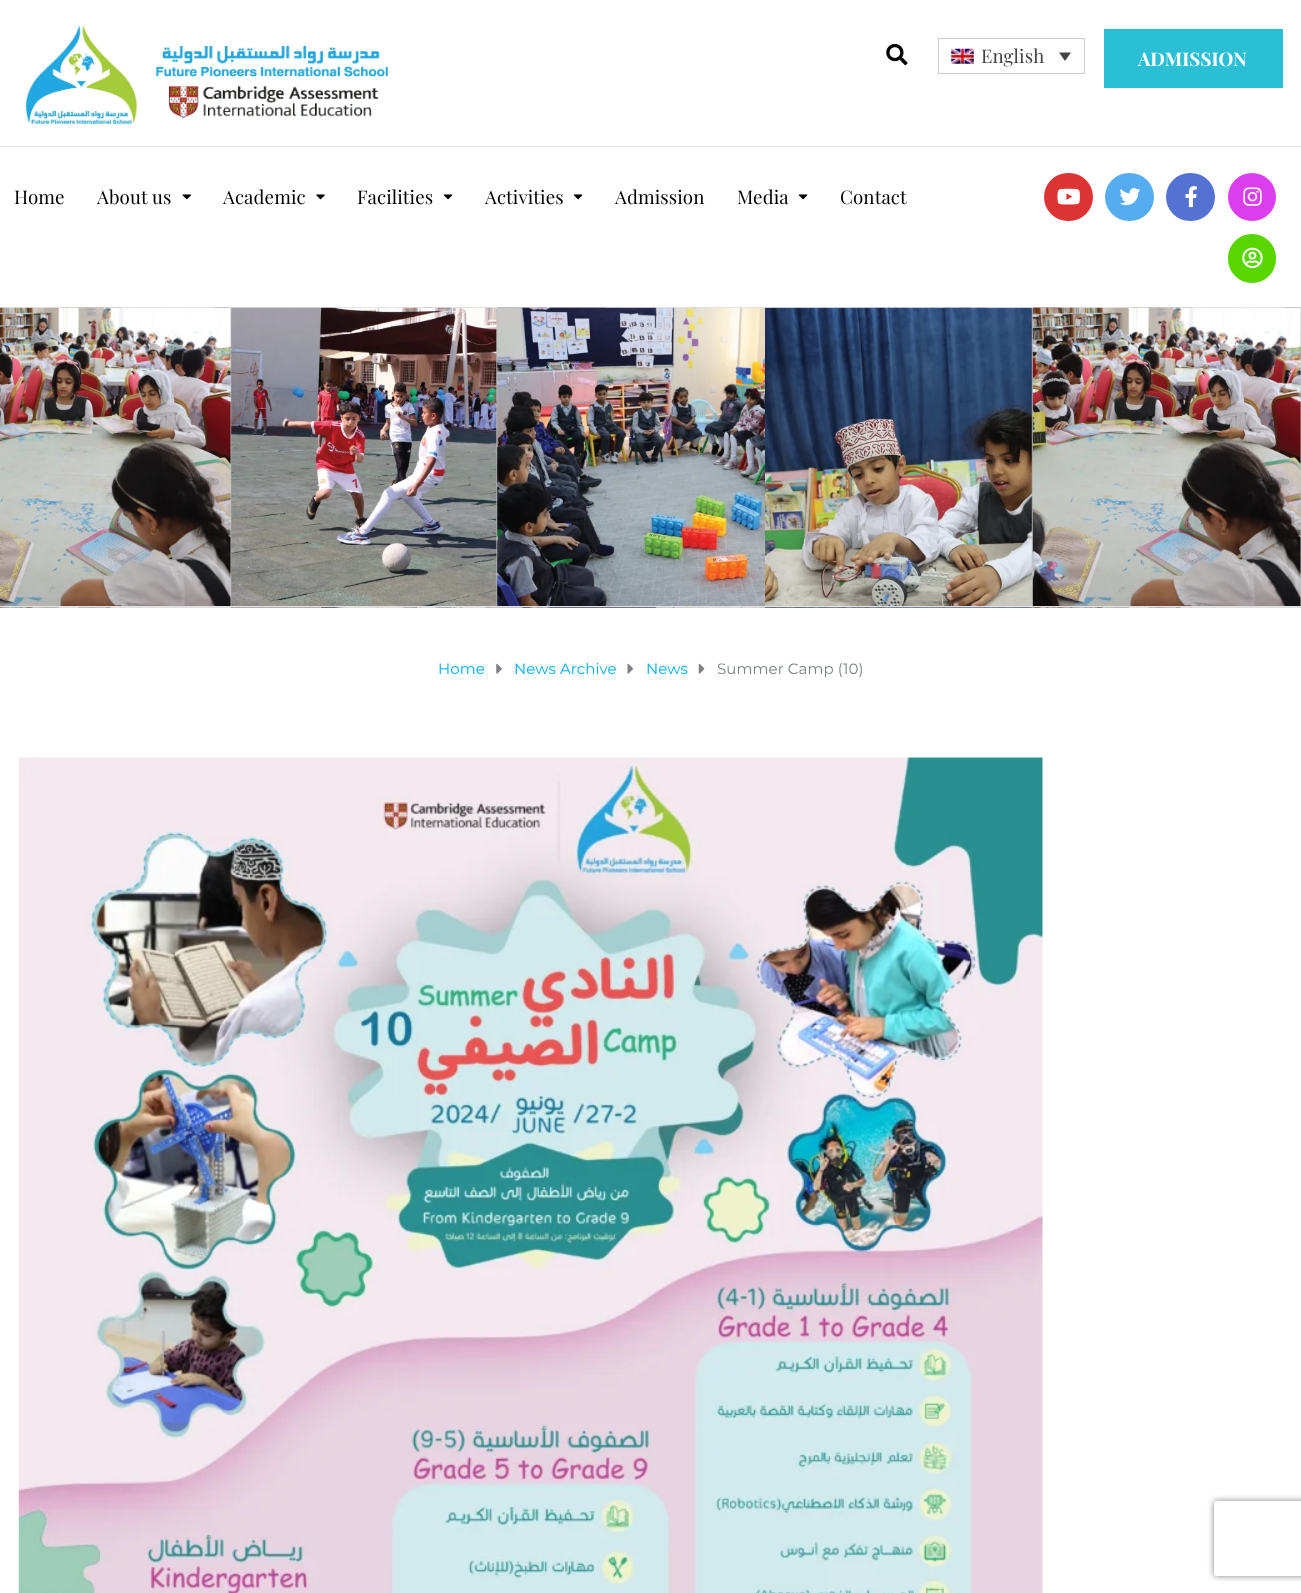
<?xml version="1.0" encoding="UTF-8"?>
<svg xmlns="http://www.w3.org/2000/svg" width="1301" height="1593">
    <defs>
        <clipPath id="clip1"><path d="M 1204 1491 H 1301 V 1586 H 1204 Z M 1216.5 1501 H 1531.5 C 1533 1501 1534 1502 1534 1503.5 V 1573.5 C 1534 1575 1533 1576 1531.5 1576 H 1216.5 C 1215 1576 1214 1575 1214 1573.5 V 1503.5 C 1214 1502 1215 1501 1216.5 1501 Z" clip-rule="evenodd"/></clipPath>
        <filter id="blur1" x="-50%" y="-200%" width="200%" height="500%"><feGaussianBlur stdDeviation="3"/></filter>
    </defs>
    <rect width="100%" height="100%" fill="#FFFFFF"/>
    <rect x="0" y="146" width="1301" height="1" fill="#E5E5E5"/>
    <image x="25" y="25" width="365" height="102" href="img_01.png"/>
    <image x="886" y="43" width="22" height="23" href="img_02.png"/>
    <rect x="938.5" y="38.5" width="146" height="35" fill="none" stroke="#CDCDCD"/>
    <image x="951" y="48" width="23" height="16" href="img_03.png"/>
    <text x="981" y="63" font-family="Playfair Display" font-size="18.75" letter-spacing="0.1" fill="#444444">English</text>
    <path d="M 1059 52.5 H 1071 L 1065 61 Z" fill="#444444"/>
    <rect x="1104" y="29" width="179" height="59" fill="#2ABFD4"/>
    <text x="1138" y="66" font-family="Playfair Display" font-size="18.75" font-weight="700" letter-spacing="0.1" fill="#FFFFFF">ADMISSION</text>
    <text x="14" y="204" font-family="Playfair Display" font-size="18.75" letter-spacing="0.1" fill="#000000">Home</text>
    <text x="97" y="204" font-family="Playfair Display" font-size="18.75" letter-spacing="0.1" fill="#000000">About us</text>
    <image x="182" y="194" width="9" height="6" href="img_04.png"/>
    <text x="223" y="204" font-family="Playfair Display" font-size="18.75" letter-spacing="0.1" fill="#000000">Academic</text>
    <image x="316" y="194" width="9" height="6" href="img_05.png"/>
    <text x="357" y="204" font-family="Playfair Display" font-size="18.75" letter-spacing="0.1" fill="#000000">Facilities</text>
    <image x="443" y="194" width="10" height="6" href="img_06.png"/>
    <text x="485" y="204" font-family="Playfair Display" font-size="18.75" letter-spacing="0.1" fill="#000000">Activities</text>
    <image x="573" y="194" width="10" height="6" href="img_06.png"/>
    <text x="615" y="204" font-family="Playfair Display" font-size="18.75" letter-spacing="0.1" fill="#000000">Admission</text>
    <text x="737" y="204" font-family="Playfair Display" font-size="18.75" letter-spacing="0.1" fill="#000000">Media</text>
    <image x="798" y="194" width="10" height="6" href="img_06.png"/>
    <text x="840" y="204" font-family="Playfair Display" font-size="18.75" letter-spacing="0.1" fill="#000000">Contact</text>
    <rect x="1044" y="173" width="49" height="48" rx="24" fill="#DD3333"/>
    <image x="1057" y="188" width="23" height="17" href="img_07.png"/>
    <rect x="1105" y="173" width="49" height="48" rx="24" fill="#55ACEE"/>
    <image x="1119" y="188" width="22" height="18" href="img_08.png"/>
    <rect x="1166" y="173" width="49" height="48" rx="24" fill="#5472D2"/>
    <image x="1185" y="186" width="12" height="22" href="img_09.png"/>
    <circle cx="1252" cy="197" r="24" fill="#DB3EEF"/>
    <image x="1243" y="187" width="19" height="19" href="img_10.png"/>
    <rect x="1228" y="234" width="48" height="49" rx="24" fill="#59D600"/>
    <image x="1242" y="247" width="21" height="21" href="img_11.png"/>
    <rect x="0" y="308" width="1301" height="300" fill="#BFBFBF"/>
    <image x="0" y="307" width="1301" height="301" href="img_12.png"/>
    <rect x="0" y="606" width="1301" height="1" fill="#E1E1E1"/>
    <text x="438" y="674" font-family="Montserrat" font-size="15" font-weight="100" letter-spacing="0.1" fill="#00AEEF">Home</text>
    <image x="496" y="663" width="6" height="11" href="img_13.png"/>
    <text x="514" y="674" font-family="Montserrat" font-size="15" font-weight="100" letter-spacing="0.1" fill="#00AEEF">News Archive</text>
    <image x="627" y="663" width="7" height="11" href="img_14.png"/>
    <text x="646" y="674" font-family="Montserrat" font-size="15" font-weight="100" letter-spacing="0.1" fill="#00AEEF">News</text>
    <image x="698" y="663" width="7" height="11" href="img_15.png"/>
    <text x="717" y="674" font-family="Montserrat" font-size="15" font-weight="100" letter-spacing="0.1" fill="#7B8085">Summer Camp (10)</text>
    <image x="18" y="757" width="1025" height="836" href="img_16.png"/>
    <g clip-path="url(#clip1)">
        <rect x="1214" y="1501" width="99" height="75" rx="2.5" fill="#808080" filter="url(#blur1)"/>
    </g>
</svg>
